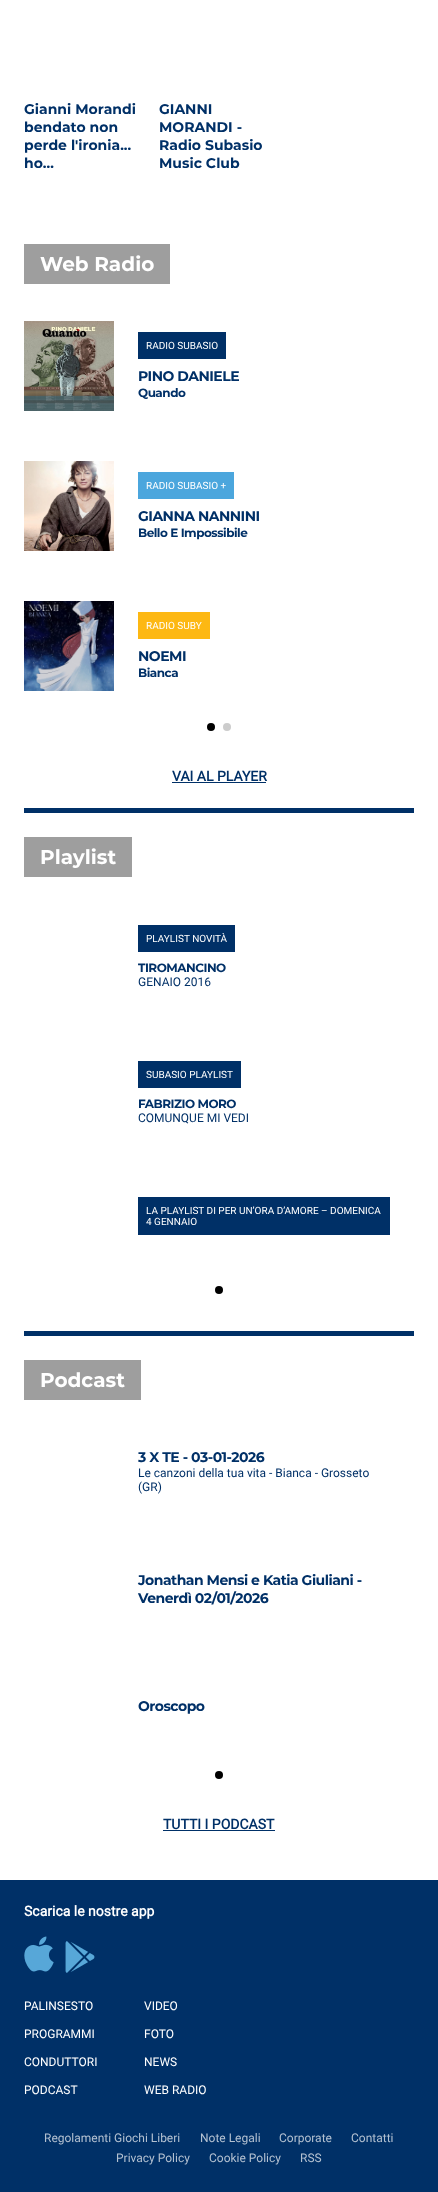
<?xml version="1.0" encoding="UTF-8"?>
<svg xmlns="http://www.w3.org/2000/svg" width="438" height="2192">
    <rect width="100%" height="100%" fill="#FFFFFF"/>
    <text font-family="Montserrat" font-size="14" font-weight="700" fill="#003067">
        <tspan x="24" y="114">Gianni Morandi</tspan>
        <tspan x="24" y="132">bendato non</tspan>
        <tspan x="24" y="150">perde l'ironia...</tspan>
        <tspan x="24" y="168">ho…</tspan>
    </text>
    <text font-family="Montserrat" font-size="14" font-weight="700" fill="#003067">
        <tspan x="159" y="114">GIANNI</tspan>
        <tspan x="159" y="132">MORANDI -</tspan>
        <tspan x="159" y="150">Radio Subasio</tspan>
        <tspan x="159" y="168">Music Club</tspan>
    </text>
    <rect x="24" y="244" width="146" height="40" fill="#9E9E9E"/>
    <text x="40" y="271" font-family="Montserrat" font-size="20" font-weight="700" fill="#FFFFFF">Web Radio</text>
    <image x="24" y="321" width="90" height="90" href="img_01.png"/>
    <rect x="138" y="332" width="88" height="27" fill="#003067"/>
    <text x="146" y="349" font-family="Roboto" font-size="10" fill="#FFFFFF">RADIO SUBASIO</text>
    <text x="138" y="381" font-family="Montserrat" font-size="14" font-weight="700" letter-spacing="-0.5" fill="#003067">PINO DANIELE</text>
    <text x="138" y="397" font-family="Montserrat" font-size="12" font-weight="700" letter-spacing="-0.5" fill="#003067">Quando</text>
    <image x="24" y="461" width="90" height="90" href="img_02.png"/>
    <rect x="138" y="472" width="96" height="27" fill="#4BA6DD"/>
    <text x="146" y="489" font-family="Roboto" font-size="10" fill="#FFFFFF">RADIO SUBASIO +</text>
    <text x="138" y="521" font-family="Montserrat" font-size="14" font-weight="700" letter-spacing="-0.5" fill="#003067">GIANNA NANNINI</text>
    <text x="138" y="537" font-family="Montserrat" font-size="12" font-weight="700" letter-spacing="-0.5" fill="#003067">Bello E Impossibile</text>
    <image x="24" y="601" width="90" height="90" href="img_03.png"/>
    <rect x="138" y="612" width="72" height="27" fill="#FDB813"/>
    <text x="146" y="629" font-family="Roboto" font-size="10" fill="#FFFFFF">RADIO SUBY</text>
    <text x="138" y="661" font-family="Montserrat" font-size="14" font-weight="700" letter-spacing="-0.5" fill="#003067">NOEMI</text>
    <text x="138" y="677" font-family="Montserrat" font-size="12" font-weight="700" letter-spacing="-0.5" fill="#003067">Bianca</text>
    <circle cx="211" cy="727" r="4" fill="#000000"/>
    <circle cx="227" cy="727" r="4" fill="#CCCCCC"/>
    <text x="172" y="781" font-family="Roboto" font-size="14" font-weight="700" fill="#003067">VAI AL PLAYER</text>
    <rect x="172" y="782" width="94" height="1" fill="#003067"/>
    <rect x="24" y="808" width="390" height="5" fill="#003067"/>
    <rect x="24" y="837" width="108" height="40" fill="#9E9E9E"/>
    <text x="40" y="864" font-family="Montserrat" font-size="20" font-weight="700" fill="#FFFFFF">Playlist</text>
    <rect x="138" y="925" width="97" height="27" fill="#003067"/>
    <text x="146" y="942" font-family="Roboto" font-size="10" fill="#FFFFFF">PLAYLIST NOVITÀ</text>
    <text x="138" y="972" font-family="Montserrat" font-size="12" font-weight="700" letter-spacing="-0.5" fill="#003067">TIROMANCINO</text>
    <text x="138" y="986" font-family="Roboto" font-size="12" fill="#003067">GENAIO 2016</text>
    <rect x="138" y="1061" width="103" height="27" fill="#003067"/>
    <text x="146" y="1078" font-family="Roboto" font-size="10" fill="#FFFFFF">SUBASIO PLAYLIST</text>
    <text x="138" y="1108" font-family="Montserrat" font-size="12" font-weight="700" letter-spacing="-0.5" fill="#003067">FABRIZIO MORO</text>
    <text x="138" y="1122" font-family="Roboto" font-size="12" fill="#003067">COMUNQUE MI VEDI</text>
    <rect x="138" y="1197" width="252" height="38" fill="#003067"/>
    <text font-family="Roboto" font-size="10" fill="#FFFFFF">
        <tspan x="146" y="1214">LA PLAYLIST DI PER UN’ORA D’AMORE – DOMENICA</tspan>
        <tspan x="146" y="1225">4 GENNAIO</tspan>
    </text>
    <circle cx="219" cy="1290" r="4" fill="#000000"/>
    <rect x="24" y="1331" width="390" height="5" fill="#003067"/>
    <rect x="24" y="1360" width="117" height="40" fill="#9E9E9E"/>
    <text x="40" y="1387" font-family="Montserrat" font-size="20" font-weight="700" fill="#FFFFFF">Podcast</text>
    <text x="138" y="1462" font-family="Montserrat" font-size="14" font-weight="700" letter-spacing="-0.5" fill="#003067">3 X TE - 03-01-2026</text>
    <text font-family="Roboto" font-size="12" fill="#003067">
        <tspan x="138" y="1477">Le canzoni della tua vita - Bianca - Grosseto</tspan>
        <tspan x="138" y="1491">(GR)</tspan>
    </text>
    <text font-family="Montserrat" font-size="14" font-weight="700" letter-spacing="-0.5" fill="#003067">
        <tspan x="138" y="1585">Jonathan Mensi e Katia Giuliani -</tspan>
        <tspan x="138" y="1603">Venerdì 02/01/2026</tspan>
    </text>
    <text x="138" y="1711" font-family="Montserrat" font-size="14" font-weight="700" letter-spacing="-0.5" fill="#003067">Oroscopo</text>
    <circle cx="219" cy="1775" r="4" fill="#000000"/>
    <text x="163" y="1829" font-family="Roboto" font-size="14" font-weight="700" fill="#003067">TUTTI I PODCAST</text>
    <rect x="163" y="1830" width="112" height="1" fill="#003067"/>
    <rect x="0" y="1880" width="438" height="312" fill="#003067"/>
    <text x="24" y="1916" font-family="Roboto" font-size="14" font-weight="700" fill="#FFFFFF">Scarica le nostre app</text>
    <image x="24" y="1936" width="30" height="36" href="img_04.png"/>
    <image x="65" y="1941" width="30" height="32" href="img_05.png"/>
    <text x="24" y="2010" font-family="Roboto" font-size="12" fill="#FFFFFF">PALINSESTO</text>
    <text x="24" y="2038" font-family="Roboto" font-size="12" fill="#FFFFFF">PROGRAMMI</text>
    <text x="24" y="2066" font-family="Roboto" font-size="12" fill="#FFFFFF">CONDUTTORI</text>
    <text x="24" y="2094" font-family="Roboto" font-size="12" fill="#FFFFFF">PODCAST</text>
    <text x="144" y="2010" font-family="Roboto" font-size="12" fill="#FFFFFF">VIDEO</text>
    <text x="144" y="2038" font-family="Roboto" font-size="12" fill="#FFFFFF">FOTO</text>
    <text x="144" y="2066" font-family="Roboto" font-size="12" fill="#FFFFFF">NEWS</text>
    <text x="144" y="2094" font-family="Roboto" font-size="12" fill="#FFFFFF">WEB RADIO</text>
    <text x="44" y="2142" font-family="Roboto" font-size="12" fill="#B3C1D1">Regolamenti Giochi Liberi</text>
    <text x="200" y="2142" font-family="Roboto" font-size="12" fill="#B3C1D1">Note Legali</text>
    <text x="279" y="2142" font-family="Roboto" font-size="12" fill="#B3C1D1">Corporate</text>
    <text x="351" y="2142" font-family="Roboto" font-size="12" fill="#B3C1D1">Contatti</text>
    <text x="116" y="2162" font-family="Roboto" font-size="12" fill="#B3C1D1">Privacy Policy</text>
    <text x="209" y="2162" font-family="Roboto" font-size="12" fill="#B3C1D1">Cookie Policy</text>
    <text x="300" y="2162" font-family="Roboto" font-size="12" fill="#B3C1D1">RSS</text>
</svg>
